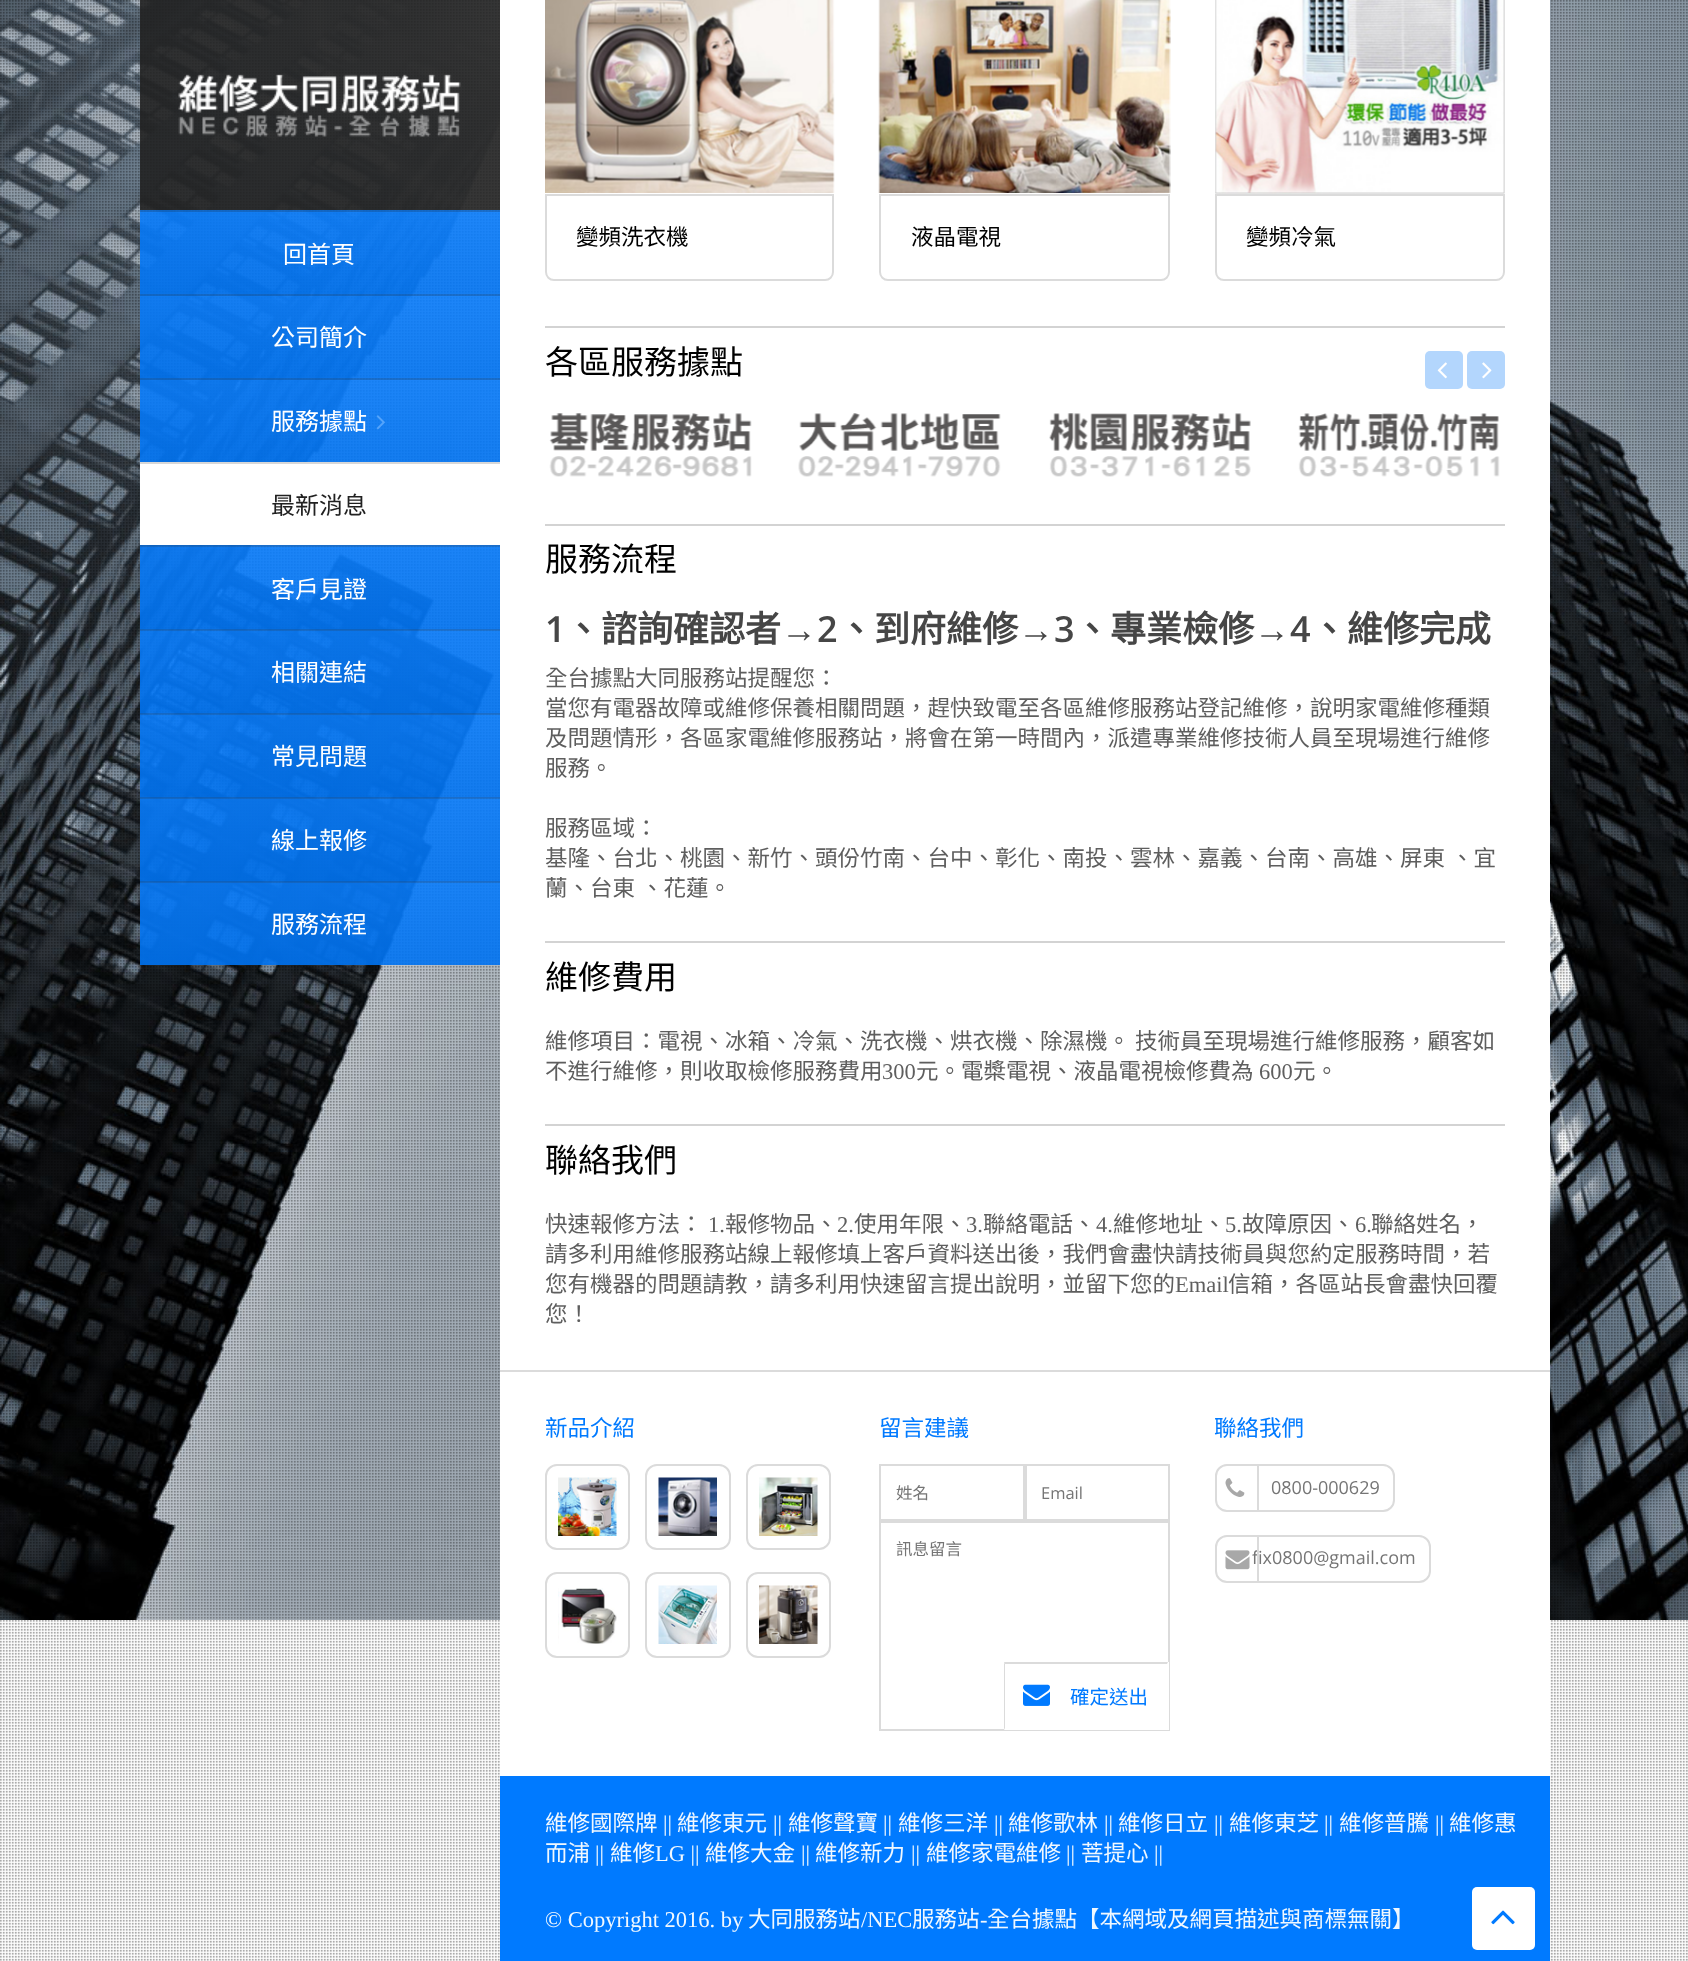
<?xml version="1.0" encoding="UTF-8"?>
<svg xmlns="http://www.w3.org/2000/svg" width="1688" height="1961">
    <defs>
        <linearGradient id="g1" gradientUnits="userSpaceOnUse" x1="320" y1="212" x2="320" y2="129"><stop offset="0" stop-color="#000000" stop-opacity="0.03"/><stop offset="1" stop-color="#FFFFFF" stop-opacity="0.03"/></linearGradient>
        <linearGradient id="g2" gradientUnits="userSpaceOnUse" x1="320" y1="294" x2="320" y2="212"><stop offset="0" stop-color="#000000" stop-opacity="0.03"/><stop offset="1" stop-color="#FFFFFF" stop-opacity="0.03"/></linearGradient>
        <linearGradient id="g3" gradientUnits="userSpaceOnUse" x1="320" y1="296" x2="320" y2="213"><stop offset="0" stop-color="#000000" stop-opacity="0.03"/><stop offset="1" stop-color="#FFFFFF" stop-opacity="0.03"/></linearGradient>
        <linearGradient id="g4" gradientUnits="userSpaceOnUse" x1="320" y1="378" x2="320" y2="296"><stop offset="0" stop-color="#000000" stop-opacity="0.03"/><stop offset="1" stop-color="#FFFFFF" stop-opacity="0.03"/></linearGradient>
        <linearGradient id="g5" gradientUnits="userSpaceOnUse" x1="320" y1="380" x2="320" y2="297"><stop offset="0" stop-color="#000000" stop-opacity="0.03"/><stop offset="1" stop-color="#FFFFFF" stop-opacity="0.03"/></linearGradient>
        <linearGradient id="g6" gradientUnits="userSpaceOnUse" x1="320" y1="462" x2="320" y2="380"><stop offset="0" stop-color="#000000" stop-opacity="0.03"/><stop offset="1" stop-color="#FFFFFF" stop-opacity="0.03"/></linearGradient>
        <linearGradient id="g7" gradientUnits="userSpaceOnUse" x1="320" y1="546" x2="320" y2="464"><stop offset="0" stop-color="#000000" stop-opacity="0.03"/><stop offset="1" stop-color="#FFFFFF" stop-opacity="0.03"/></linearGradient>
        <linearGradient id="g8" gradientUnits="userSpaceOnUse" x1="320" y1="629" x2="320" y2="546"><stop offset="0" stop-color="#000000" stop-opacity="0.03"/><stop offset="1" stop-color="#FFFFFF" stop-opacity="0.03"/></linearGradient>
        <linearGradient id="g9" gradientUnits="userSpaceOnUse" x1="320" y1="630" x2="320" y2="548"><stop offset="0" stop-color="#000000" stop-opacity="0.03"/><stop offset="1" stop-color="#FFFFFF" stop-opacity="0.03"/></linearGradient>
        <linearGradient id="g10" gradientUnits="userSpaceOnUse" x1="320" y1="713" x2="320" y2="630"><stop offset="0" stop-color="#000000" stop-opacity="0.03"/><stop offset="1" stop-color="#FFFFFF" stop-opacity="0.03"/></linearGradient>
        <linearGradient id="g11" gradientUnits="userSpaceOnUse" x1="320" y1="714" x2="320" y2="632"><stop offset="0" stop-color="#000000" stop-opacity="0.03"/><stop offset="1" stop-color="#FFFFFF" stop-opacity="0.03"/></linearGradient>
        <linearGradient id="g12" gradientUnits="userSpaceOnUse" x1="320" y1="797" x2="320" y2="714"><stop offset="0" stop-color="#000000" stop-opacity="0.03"/><stop offset="1" stop-color="#FFFFFF" stop-opacity="0.03"/></linearGradient>
        <linearGradient id="g13" gradientUnits="userSpaceOnUse" x1="320" y1="798" x2="320" y2="716"><stop offset="0" stop-color="#000000" stop-opacity="0.03"/><stop offset="1" stop-color="#FFFFFF" stop-opacity="0.03"/></linearGradient>
        <linearGradient id="g14" gradientUnits="userSpaceOnUse" x1="320" y1="881" x2="320" y2="798"><stop offset="0" stop-color="#000000" stop-opacity="0.03"/><stop offset="1" stop-color="#FFFFFF" stop-opacity="0.03"/></linearGradient>
        <linearGradient id="g15" gradientUnits="userSpaceOnUse" x1="320" y1="882" x2="320" y2="800"><stop offset="0" stop-color="#000000" stop-opacity="0.03"/><stop offset="1" stop-color="#FFFFFF" stop-opacity="0.03"/></linearGradient>
        <linearGradient id="g16" gradientUnits="userSpaceOnUse" x1="320" y1="965" x2="320" y2="882"><stop offset="0" stop-color="#000000" stop-opacity="0.03"/><stop offset="1" stop-color="#FFFFFF" stop-opacity="0.03"/></linearGradient>
    </defs>
    <rect width="100%" height="100%" fill="#FFFFFF"/>
    <image x="0" y="0" width="1688" height="1620" href="img_01.png"/>
    <image x="0" y="0" width="1688" height="1961" href="img_02.png"/>
    <rect x="140" y="0" width="360" height="210" fill="#212121" fill-opacity="0.9"/>
    <image x="178" y="74" width="283" height="63" href="img_03.png"/>
    <rect x="140" y="210" width="360" height="84" fill="#0077F9" fill-opacity="0.9"/>
    <rect x="140" y="210" width="360" height="2" fill="url(#g1)"/>
    <rect x="140" y="212" width="360" height="82" fill="url(#g2)"/>
    <rect x="140" y="210" width="360" height="2" fill="#383838" fill-opacity="0.2"/>
    <text x="283" y="263" font-family="Noto Sans CJK TC" font-size="24" fill="#FFFFFF">回首頁</text>
    <rect x="140" y="294" width="360" height="84" fill="#0077F9" fill-opacity="0.9"/>
    <rect x="140" y="294" width="360" height="2" fill="url(#g3)"/>
    <rect x="140" y="296" width="360" height="82" fill="url(#g4)"/>
    <rect x="140" y="294" width="360" height="2" fill="#383838" fill-opacity="0.2"/>
    <text x="271" y="346" font-family="Noto Sans CJK TC" font-size="24" fill="#FFFFFF">公司簡介</text>
    <rect x="140" y="378" width="360" height="84" fill="#0077F9" fill-opacity="0.9"/>
    <rect x="140" y="378" width="360" height="2" fill="url(#g5)"/>
    <rect x="140" y="380" width="360" height="82" fill="url(#g6)"/>
    <rect x="140" y="378" width="360" height="2" fill="#383838" fill-opacity="0.2"/>
    <text x="271" y="430" font-family="Noto Sans CJK TC" font-size="24" fill="#FFFFFF">服務據點</text>
    <image x="376" y="415" width="9" height="15" href="img_04.png"/>
    <rect x="140" y="464" width="360" height="81" fill="#FFFFFF"/>
    <rect x="140" y="462" width="360" height="2" fill="#D7D7D7"/>
    <text x="271" y="514" font-family="Noto Sans CJK TC" font-size="24" fill="#212121">最新消息</text>
    <rect x="140" y="545" width="360" height="84" fill="#0077F9" fill-opacity="0.9"/>
    <rect x="140" y="545" width="360" height="1" fill="url(#g7)"/>
    <rect x="140" y="546" width="360" height="83" fill="url(#g8)"/>
    <rect x="140" y="545" width="360" height="2" fill="#383838" fill-opacity="0.2"/>
    <text x="271" y="598" font-family="Noto Sans CJK TC" font-size="24" fill="#FFFFFF">客戶見證</text>
    <rect x="140" y="629" width="360" height="84" fill="#0077F9" fill-opacity="0.9"/>
    <rect x="140" y="629" width="360" height="1" fill="url(#g9)"/>
    <rect x="140" y="630" width="360" height="83" fill="url(#g10)"/>
    <rect x="140" y="629" width="360" height="2" fill="#383838" fill-opacity="0.2"/>
    <text x="271" y="681" font-family="Noto Sans CJK TC" font-size="24" fill="#FFFFFF">相關連結</text>
    <rect x="140" y="713" width="360" height="84" fill="#0077F9" fill-opacity="0.9"/>
    <rect x="140" y="713" width="360" height="1" fill="url(#g11)"/>
    <rect x="140" y="714" width="360" height="83" fill="url(#g12)"/>
    <rect x="140" y="713" width="360" height="2" fill="#383838" fill-opacity="0.2"/>
    <text x="271" y="765" font-family="Noto Sans CJK TC" font-size="24" fill="#FFFFFF">常見問題</text>
    <rect x="140" y="797" width="360" height="84" fill="#0077F9" fill-opacity="0.9"/>
    <rect x="140" y="797" width="360" height="1" fill="url(#g13)"/>
    <rect x="140" y="798" width="360" height="83" fill="url(#g14)"/>
    <rect x="140" y="797" width="360" height="2" fill="#383838" fill-opacity="0.2"/>
    <text x="271" y="849" font-family="Noto Sans CJK TC" font-size="24" fill="#FFFFFF">線上報修</text>
    <rect x="140" y="881" width="360" height="84" fill="#0077F9" fill-opacity="0.9"/>
    <rect x="140" y="881" width="360" height="1" fill="url(#g15)"/>
    <rect x="140" y="882" width="360" height="83" fill="url(#g16)"/>
    <rect x="140" y="881" width="360" height="2" fill="#383838" fill-opacity="0.2"/>
    <text x="271" y="933" font-family="Noto Sans CJK TC" font-size="24" fill="#FFFFFF">服務流程</text>
    <rect x="500" y="0" width="1050" height="1370" fill="#FFFFFF"/>
    <rect x="545" y="326" width="960" height="2" fill="#D3D3D3"/>
    <image x="545" y="0" width="290" height="193" href="img_05.png"/>
    <path d="M 546 195 H 833 V 272 C 833 276.5 829.5 280 825 280 H 554 C 549.5 280 546 276.5 546 272 Z" fill="none" stroke="#DBDBDB" stroke-width="2"/>
    <text x="576" y="245" font-family="Noto Sans CJK TC" font-size="22.5" fill="#000000">變頻洗衣機</text>
    <image x="878" y="0" width="293" height="193" href="img_06.png"/>
    <path d="M 880 195 H 1169 V 272 C 1169 276.5 1165.5 280 1161 280 H 888 C 883.5 280 880 276.5 880 272 Z" fill="none" stroke="#DBDBDB" stroke-width="2"/>
    <text x="911" y="245" font-family="Noto Sans CJK TC" font-size="22.5" fill="#000000">液晶電視</text>
    <image x="1215" y="0" width="290" height="194" href="img_07.png"/>
    <path d="M 1216 195 H 1504 V 272 C 1504 276.5 1500.5 280 1496 280 H 1224 C 1219.5 280 1216 276.5 1216 272 Z" fill="none" stroke="#DBDBDB" stroke-width="2"/>
    <text x="1246" y="245" font-family="Noto Sans CJK TC" font-size="22.5" fill="#000000">變頻冷氣</text>
    <rect x="545" y="524" width="960" height="2" fill="#D3D3D3"/>
    <text x="545" y="374" font-family="Noto Sans CJK TC" font-size="33" fill="#000000">各區服務據點</text>
    <rect x="1425" y="351" width="38" height="38" rx="5" fill="#B3D6FD"/>
    <image x="1437" y="362" width="10" height="17" href="img_08.png"/>
    <rect x="1467" y="351" width="38" height="38" rx="5" fill="#B3D6FD"/>
    <image x="1482" y="362" width="10" height="17" href="img_09.png"/>
    <image x="549" y="413" width="203" height="64" href="img_10.png"/>
    <image x="798" y="413" width="203" height="64" href="img_11.png"/>
    <image x="1049" y="413" width="202" height="64" href="img_12.png"/>
    <image x="1298" y="413" width="202" height="64" href="img_13.png"/>
    <rect x="545" y="941" width="960" height="2" fill="#D3D3D3"/>
    <text x="545" y="571" font-family="Noto Sans CJK TC" font-size="33" fill="#000000">服務流程</text>
    <text x="545" y="642" font-family="Open Sans" font-size="36" font-weight="600" fill="#464646">1</text>
    <text x="565" y="642" font-family="Noto Sans CJK TC" font-size="36" font-weight="700" fill="#464646">、諮詢確認者</text>
    <text x="781" y="642" font-family="Liberation Sans" font-size="36" font-weight="700" fill="#464646">→</text>
    <text x="817" y="642" font-family="Open Sans" font-size="36" font-weight="600" fill="#464646">2</text>
    <text x="838" y="642" font-family="Noto Sans CJK TC" font-size="36" font-weight="700" fill="#464646">、到府維修</text>
    <text x="1018" y="642" font-family="Liberation Sans" font-size="36" font-weight="700" fill="#464646">→</text>
    <text x="1054" y="642" font-family="Open Sans" font-size="36" font-weight="600" fill="#464646">3</text>
    <text x="1074" y="642" font-family="Noto Sans CJK TC" font-size="36" font-weight="700" fill="#464646">、專業檢修</text>
    <text x="1254" y="642" font-family="Liberation Sans" font-size="36" font-weight="700" fill="#464646">→</text>
    <text x="1290" y="642" font-family="Open Sans" font-size="36" font-weight="600" fill="#464646">4</text>
    <text x="1311" y="642" font-family="Noto Sans CJK TC" font-size="36" font-weight="700" fill="#464646">、維修完成</text>
    <text font-family="Noto Sans CJK TC" font-size="22.5" fill="#5E5E5E">
        <tspan x="545" y="686">全台據點大同服務站提醒您：</tspan>
        <tspan x="545" y="716">當您有電器故障或維修保養相關問題，趕快致電至各區維修服務站登記維修，說明家電維修種類</tspan>
        <tspan x="545" y="746">及問題情形，各區家電維修服務站，將會在第一時間內，派遣專業維修技術人員至現場進行維修</tspan>
        <tspan x="545" y="776">服務。</tspan>
    </text>
    <text font-family="Noto Sans CJK TC" font-size="22.5" fill="#5E5E5E">
        <tspan x="545" y="836">服務區域：</tspan>
        <tspan x="545" y="866" word-spacing="1">基隆、台北、桃園、新竹、頭份竹南、台中、彰化、南投、雲林、嘉義、台南、高雄、屏東 、宜</tspan>
        <tspan x="545" y="896" word-spacing="1">蘭、台東 、花蓮。</tspan>
    </text>
    <rect x="545" y="1124" width="960" height="2" fill="#D3D3D3"/>
    <text x="545" y="989" font-family="Noto Sans CJK TC" font-size="33" fill="#000000">維修費用</text>
    <text x="545" y="1049" font-family="Noto Sans CJK TC" font-size="22.5" fill="#5E5E5E">維修項目：電視、冰箱、冷氣、洗衣機、烘衣機、除濕機。</text>
    <text x="1135" y="1049" font-family="Noto Sans CJK TC" font-size="22.5" fill="#5E5E5E">技術員至現場進行維修服務，顧客如</text>
    <text x="545" y="1079" font-family="Noto Sans CJK TC" font-size="22.5" fill="#5E5E5E">不進行維修，則收取檢修服務費用</text>
    <text x="882" y="1079" font-family="Liberation Serif" font-size="22.5" fill="#5E5E5E">300</text>
    <text x="916" y="1079" font-family="Noto Sans CJK TC" font-size="22.5" fill="#5E5E5E">元。電槳電視、液晶電視檢修費為</text>
    <text x="1259" y="1079" font-family="Liberation Serif" font-size="22.5" fill="#5E5E5E">600</text>
    <text x="1293" y="1079" font-family="Noto Sans CJK TC" font-size="22.5" fill="#5E5E5E">元。</text>
    <text x="545" y="1172" font-family="Noto Sans CJK TC" font-size="33" fill="#000000">聯絡我們</text>
    <text x="545" y="1232" font-family="Noto Sans CJK TC" font-size="22.5" fill="#5E5E5E">快速報修方法：</text>
    <text x="708" y="1232" font-family="Liberation Serif" font-size="22.5" fill="#5E5E5E">1.</text>
    <text x="725" y="1232" font-family="Noto Sans CJK TC" font-size="22.5" fill="#5E5E5E">報修物品、</text>
    <text x="837" y="1232" font-family="Liberation Serif" font-size="22.5" fill="#5E5E5E">2.</text>
    <text x="854" y="1232" font-family="Noto Sans CJK TC" font-size="22.5" fill="#5E5E5E">使用年限、</text>
    <text x="966" y="1232" font-family="Liberation Serif" font-size="22.5" fill="#5E5E5E">3.</text>
    <text x="983" y="1232" font-family="Noto Sans CJK TC" font-size="22.5" fill="#5E5E5E">聯絡電話、</text>
    <text x="1096" y="1232" font-family="Liberation Serif" font-size="22.5" fill="#5E5E5E">4.</text>
    <text x="1113" y="1232" font-family="Noto Sans CJK TC" font-size="22.5" fill="#5E5E5E">維修地址、</text>
    <text x="1225" y="1232" font-family="Liberation Serif" font-size="22.5" fill="#5E5E5E">5.</text>
    <text x="1242" y="1232" font-family="Noto Sans CJK TC" font-size="22.5" fill="#5E5E5E">故障原因、</text>
    <text x="1355" y="1232" font-family="Liberation Serif" font-size="22.5" fill="#5E5E5E">6.</text>
    <text x="1371" y="1232" font-family="Noto Sans CJK TC" font-size="22.5" fill="#5E5E5E">聯絡姓名，</text>
    <text font-family="Noto Sans CJK TC" font-size="22.5" fill="#5E5E5E">
        <tspan x="545" y="1262">請多利用維修服務站線上報修填上客戶資料送出後，我們會盡快請技術員與您約定服務時間，若</tspan>
        <tspan x="545" y="1292">您有機器的問題請教，請多利用快速留言提出說明，並留下您的</tspan>
    </text>
    <text x="1175" y="1292" font-family="Liberation Serif" font-size="22.5" fill="#5E5E5E">Email</text>
    <text x="1228" y="1292" font-family="Noto Sans CJK TC" font-size="22.5" fill="#5E5E5E">信箱，各區站長會盡快回覆</text>
    <text x="545" y="1322" font-family="Noto Sans CJK TC" font-size="22.5" fill="#5E5E5E">您！</text>
    <rect x="500" y="1372" width="1050" height="404" fill="#FFFFFF"/>
    <rect x="500" y="1370" width="1050" height="2" fill="#DBDBDB"/>
    <text x="545" y="1436" font-family="Noto Sans CJK TC" font-size="22.5" fill="#007AFF">新品介紹</text>
    <rect x="546" y="1465" width="83" height="84" rx="11" fill="none" stroke="#DBDBDB" stroke-width="2"/>
    <image x="558" y="1477" width="59" height="59" href="img_14.png"/>
    <rect x="646" y="1465" width="84" height="84" rx="11" fill="none" stroke="#DBDBDB" stroke-width="2"/>
    <image x="658" y="1477" width="59" height="59" href="img_15.png"/>
    <rect x="747" y="1465" width="83" height="84" rx="11" fill="none" stroke="#DBDBDB" stroke-width="2"/>
    <image x="759" y="1477" width="59" height="59" href="img_16.png"/>
    <rect x="546" y="1573" width="83" height="84" rx="11" fill="none" stroke="#DBDBDB" stroke-width="2"/>
    <image x="558" y="1588" width="59" height="56" href="img_17.png"/>
    <rect x="646" y="1573" width="84" height="84" rx="11" fill="none" stroke="#DBDBDB" stroke-width="2"/>
    <image x="658" y="1585" width="59" height="59" href="img_18.png"/>
    <rect x="747" y="1573" width="83" height="84" rx="11" fill="none" stroke="#DBDBDB" stroke-width="2"/>
    <image x="759" y="1585" width="59" height="59" href="img_19.png"/>
    <text x="879" y="1436" font-family="Noto Sans CJK TC" font-size="22.5" fill="#007AFF">留言建議</text>
    <rect x="880" y="1465" width="144" height="55" fill="none" stroke="#DBDBDB" stroke-width="2"/>
    <text x="896" y="1499" font-family="Noto Sans CJK TC" font-size="16.5" fill="#757575">姓名</text>
    <rect x="1026" y="1465" width="143" height="55" fill="none" stroke="#DBDBDB" stroke-width="2"/>
    <text x="1041" y="1499" font-family="Open Sans" font-size="16.5" fill="#757575">Email</text>
    <rect x="880" y="1522" width="289" height="208" fill="none" stroke="#DBDBDB" stroke-width="2"/>
    <text x="896" y="1555" font-family="Noto Sans CJK TC" font-size="16.5" fill="#757575">訊息留言</text>
    <rect x="1004" y="1662" width="165" height="68" fill="#FFFFFF"/>
    <path d="M 1004 1662 H 1168 L 1167 1664 H 1005 Z" fill="#DBDBDB"/>
    <path d="M 1004 1730 V 1662 L 1005 1664 V 1728 Z" fill="#DBDBDB"/>
    <image x="1023" y="1684" width="27" height="22" href="img_20.png"/>
    <text x="1070" y="1704" font-family="Noto Sans CJK TC" font-size="19.5" fill="#007AFF">確定送出</text>
    <text x="1214" y="1436" font-family="Noto Sans CJK TC" font-size="22.5" fill="#007AFF">聯絡我們</text>
    <rect x="1216" y="1465" width="178" height="46" rx="11" fill="none" stroke="#DBDBDB" stroke-width="2"/>
    <image x="1225" y="1478" width="20" height="19" href="img_21.png"/>
    <rect x="1257" y="1466" width="2" height="45" fill="#DBDBDB"/>
    <text x="1271" y="1494" font-family="Open Sans" font-size="18" fill="#757575">0800-000629</text>
    <rect x="1216" y="1536" width="214" height="46" rx="11" fill="none" stroke="#DBDBDB" stroke-width="2"/>
    <image x="1225" y="1550" width="25" height="20" href="img_22.png"/>
    <text x="1252" y="1564" font-family="Open Sans" font-size="18" fill="#757575">fix0800@gmail.com</text>
    <rect x="1257" y="1536" width="2" height="45" fill="#DBDBDB"/>
    <rect x="500" y="1776" width="1050" height="185" fill="#007AFF"/>
    <text x="545" y="1831" font-family="Noto Sans CJK TC" font-size="22.5" fill="#F0F8FF">維修國際牌</text>
    <text x="663" y="1831" font-family="Liberation Serif" font-size="22.5" fill="#F0F8FF">||</text>
    <text x="677" y="1831" font-family="Noto Sans CJK TC" font-size="22.5" fill="#F0F8FF">維修東元</text>
    <text x="773" y="1831" font-family="Liberation Serif" font-size="22.5" fill="#F0F8FF">||</text>
    <text x="788" y="1831" font-family="Noto Sans CJK TC" font-size="22.5" fill="#F0F8FF">維修聲寶</text>
    <text x="883" y="1831" font-family="Liberation Serif" font-size="22.5" fill="#F0F8FF">||</text>
    <text x="898" y="1831" font-family="Noto Sans CJK TC" font-size="22.5" fill="#F0F8FF">維修三洋</text>
    <text x="994" y="1831" font-family="Liberation Serif" font-size="22.5" fill="#F0F8FF">||</text>
    <text x="1008" y="1831" font-family="Noto Sans CJK TC" font-size="22.5" fill="#F0F8FF">維修歌林</text>
    <text x="1104" y="1831" font-family="Liberation Serif" font-size="22.5" fill="#F0F8FF">||</text>
    <text x="1118" y="1831" font-family="Noto Sans CJK TC" font-size="22.5" fill="#F0F8FF">維修日立</text>
    <text x="1214" y="1831" font-family="Liberation Serif" font-size="22.5" fill="#F0F8FF">||</text>
    <text x="1229" y="1831" font-family="Noto Sans CJK TC" font-size="22.5" fill="#F0F8FF">維修東芝</text>
    <text x="1324" y="1831" font-family="Liberation Serif" font-size="22.5" fill="#F0F8FF">||</text>
    <text x="1339" y="1831" font-family="Noto Sans CJK TC" font-size="22.5" fill="#F0F8FF">維修普騰</text>
    <text x="1435" y="1831" font-family="Liberation Serif" font-size="22.5" fill="#F0F8FF">||</text>
    <text x="1449" y="1831" font-family="Noto Sans CJK TC" font-size="22.5" fill="#F0F8FF">維修惠</text>
    <text x="545" y="1861" font-family="Noto Sans CJK TC" font-size="22.5" fill="#F0F8FF">而浦</text>
    <text x="595" y="1861" font-family="Liberation Serif" font-size="22.5" fill="#F0F8FF">||</text>
    <text x="610" y="1861" font-family="Noto Sans CJK TC" font-size="22.5" fill="#F0F8FF">維修</text>
    <text x="655" y="1861" font-family="Liberation Serif" font-size="22.5" fill="#F0F8FF">LG ||</text>
    <text x="705" y="1861" font-family="Noto Sans CJK TC" font-size="22.5" fill="#F0F8FF">維修大金</text>
    <text x="801" y="1861" font-family="Liberation Serif" font-size="22.5" fill="#F0F8FF">||</text>
    <text x="815" y="1861" font-family="Noto Sans CJK TC" font-size="22.5" fill="#F0F8FF">維修新力</text>
    <text x="911" y="1861" font-family="Liberation Serif" font-size="22.5" fill="#F0F8FF">||</text>
    <text x="926" y="1861" font-family="Noto Sans CJK TC" font-size="22.5" fill="#F0F8FF">維修家電維修</text>
    <text x="1066" y="1861" font-family="Liberation Serif" font-size="22.5" fill="#F0F8FF">||</text>
    <text x="1081" y="1861" font-family="Noto Sans CJK TC" font-size="22.5" fill="#F0F8FF">菩提心</text>
    <text x="1154" y="1861" font-family="Liberation Serif" font-size="22.5" fill="#F0F8FF">||</text>
    <text x="545" y="1927" font-family="Liberation Serif" font-size="22.5" fill="#F0F8FF">© Copyright 2016. by</text>
    <text x="748" y="1927" font-family="Noto Sans CJK TC" font-size="22.5" fill="#F0F8FF">大同服務站</text>
    <text x="861" y="1927" font-family="Liberation Serif" font-size="22.5" fill="#F0F8FF">/NEC</text>
    <text x="912" y="1927" font-family="Noto Sans CJK TC" font-size="22.5" fill="#F0F8FF">服務站</text>
    <text x="980" y="1927" font-family="Liberation Serif" font-size="22.5" fill="#F0F8FF">-</text>
    <text x="987" y="1927" font-family="Noto Sans CJK TC" font-size="22.5" fill="#F0F8FF">全台據點【本網域及網頁描述與商標無關】</text>
    <rect x="1472" y="1887" width="63" height="63" rx="5" fill="#FFFFFF"/>
    <image x="1491" y="1910" width="24" height="15" href="img_23.png"/>
</svg>
